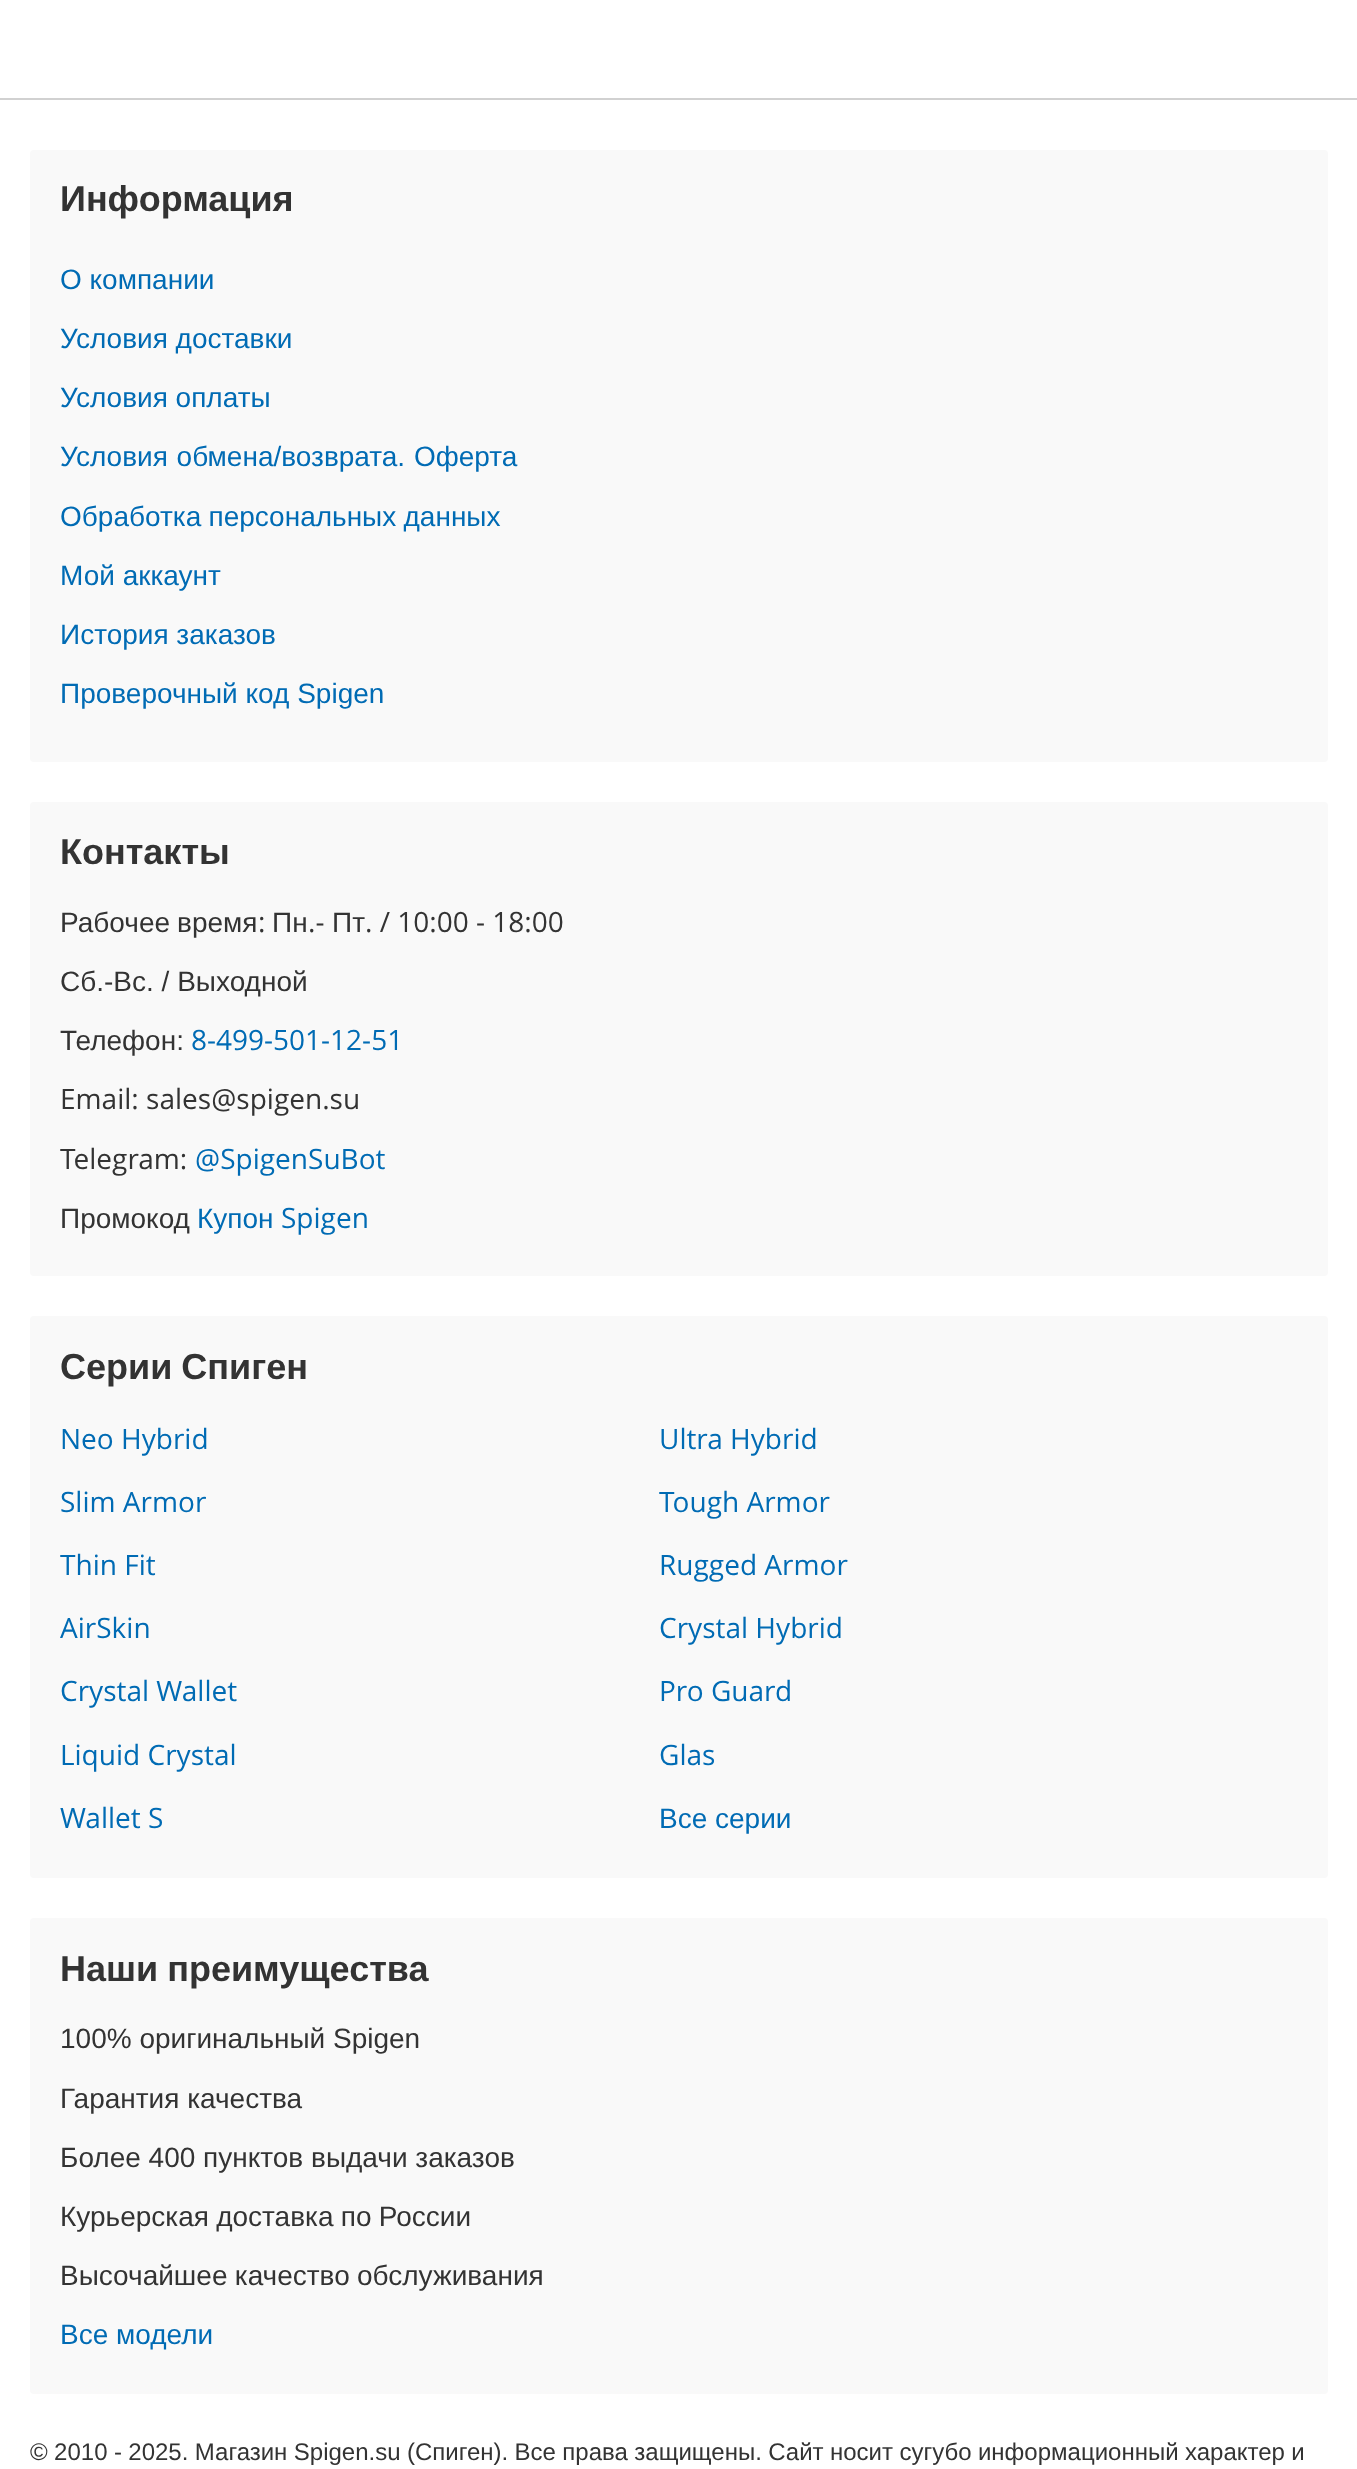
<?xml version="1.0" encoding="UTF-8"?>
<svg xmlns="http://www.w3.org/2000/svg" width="1357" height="2469">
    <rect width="100%" height="100%" fill="#FFFFFF"/>
    <rect x="0" y="98" width="1357" height="2" fill="#D1D1D1"/>
    <rect x="30" y="150" width="1298" height="612" rx="4" fill="#F9F9F9"/>
    <text x="60" y="211" font-family="Liberation Sans" font-size="36" font-weight="700" fill="#333333">Информация</text>
    <text x="60" y="289" font-family="Liberation Sans" font-size="28" fill="#006BB4">О компании</text>
    <text x="60" y="348" font-family="Liberation Sans" font-size="28" fill="#006BB4">Условия доставки</text>
    <text x="60" y="407" font-family="Liberation Sans" font-size="28" fill="#006BB4">Условия оплаты</text>
    <text x="60" y="466" word-spacing="1" font-family="Liberation Sans" font-size="28" fill="#006BB4">Условия обмена/возврата. Оферта</text>
    <text x="60" y="526" word-spacing="-0.5" font-family="Liberation Sans" font-size="28" fill="#006BB4">Обработка персональных данных</text>
    <text x="60" y="585" font-family="Liberation Sans" font-size="28" fill="#006BB4">Мой аккаунт</text>
    <text x="60" y="644" font-family="Liberation Sans" font-size="28" fill="#006BB4">История заказов</text>
    <text x="60" y="703" font-family="Liberation Sans" font-size="28" fill="#006BB4">Проверочный код Spigen</text>
    <rect x="30" y="802" width="1298" height="474" rx="4" fill="#F9F9F9"/>
    <text x="60" y="864" font-family="Liberation Sans" font-size="36" font-weight="700" fill="#333333">Контакты</text>
    <text x="60" y="932" font-family="Liberation Sans" font-size="28" fill="#333333">Рабочее</text>
    <text x="177" y="932" font-family="Liberation Sans" font-size="28" fill="#333333">время</text>
    <text x="258" y="932" font-family="Open Sans" font-size="28" fill="#333333">:</text>
    <text x="272" y="932" font-family="Liberation Sans" font-size="28" fill="#333333">Пн</text>
    <text x="308" y="932" font-family="Open Sans" font-size="28" fill="#333333">.-</text>
    <text x="332" y="932" font-family="Liberation Sans" font-size="28" fill="#333333">Пт</text>
    <text x="365" y="932" font-family="Open Sans" font-size="28" fill="#333333">. / 10:00 - 18:00</text>
    <text x="60" y="991" font-family="Liberation Sans" font-size="28" fill="#333333">Сб.-Вс. / Выходной</text>
    <text x="60" y="1050" font-family="Liberation Sans" font-size="28" fill="#333333">Телефон:</text>
    <text x="191" y="1050" font-family="Open Sans" font-size="28" fill="#006BB4">8-499-501-12-51</text>
    <text x="60" y="1109" font-family="Open Sans" font-size="28" fill="#333333">Email: sales@spigen.su</text>
    <text x="60" y="1169" font-family="Open Sans" font-size="28" fill="#333333">Telegram:</text>
    <text x="195" y="1169" font-family="Open Sans" font-size="28" fill="#006BB4">@SpigenSuBot</text>
    <text x="60" y="1228" font-family="Liberation Sans" font-size="28" fill="#333333">Промокод</text>
    <text x="197" y="1228" font-family="Liberation Sans" font-size="28" fill="#006BB4">Купон</text>
    <text x="281" y="1228" font-family="Open Sans" font-size="28" fill="#006BB4">Spigen</text>
    <rect x="30" y="1316" width="1298" height="562" rx="4" fill="#F9F9F9"/>
    <text x="60" y="1379" word-spacing="-1" font-family="Liberation Sans" font-size="36" font-weight="700" fill="#333333">Серии Спиген</text>
    <text x="60" y="1449" font-family="Open Sans" font-size="28" fill="#006BB4">Neo Hybrid</text>
    <text x="659" y="1449" font-family="Open Sans" font-size="28" fill="#006BB4">Ultra Hybrid</text>
    <text x="60" y="1512" font-family="Open Sans" font-size="28" fill="#006BB4">Slim Armor</text>
    <text x="659" y="1512" font-family="Open Sans" font-size="28" fill="#006BB4">Tough Armor</text>
    <text x="60" y="1575" font-family="Open Sans" font-size="28" fill="#006BB4">Thin Fit</text>
    <text x="659" y="1575" font-family="Open Sans" font-size="28" fill="#006BB4">Rugged Armor</text>
    <text x="60" y="1638" font-family="Open Sans" font-size="28" fill="#006BB4">AirSkin</text>
    <text x="659" y="1638" font-family="Open Sans" font-size="28" fill="#006BB4">Crystal Hybrid</text>
    <text x="60" y="1701" font-family="Open Sans" font-size="28" fill="#006BB4">Crystal Wallet</text>
    <text x="659" y="1701" font-family="Open Sans" font-size="28" fill="#006BB4">Pro Guard</text>
    <text x="60" y="1765" font-family="Open Sans" font-size="28" fill="#006BB4">Liquid Crystal</text>
    <text x="659" y="1765" font-family="Open Sans" font-size="28" fill="#006BB4">Glas</text>
    <text x="60" y="1828" font-family="Open Sans" font-size="28" fill="#006BB4">Wallet S</text>
    <text x="659" y="1828" font-family="Liberation Sans" font-size="28" fill="#006BB4">Все серии</text>
    <rect x="30" y="1918" width="1298" height="476" rx="4" fill="#F9F9F9"/>
    <text x="60" y="1981" word-spacing="-1" font-family="Liberation Sans" font-size="36" font-weight="700" fill="#333333">Наши преимущества</text>
    <text x="60" y="2048" font-family="Liberation Sans" font-size="28" fill="#333333">100% оригинальный Spigen</text>
    <text x="60" y="2108" font-family="Liberation Sans" font-size="28" fill="#333333">Гарантия качества</text>
    <text x="60" y="2167" font-family="Liberation Sans" font-size="28" fill="#333333">Более 400 пунктов выдачи заказов</text>
    <text x="60" y="2226" word-spacing="-0.5" font-family="Liberation Sans" font-size="28" fill="#333333">Курьерская доставка по России</text>
    <text x="60" y="2285" word-spacing="-0.5" font-family="Liberation Sans" font-size="28" fill="#333333">Высочайшее качество обслуживания</text>
    <text x="60" y="2344" font-family="Liberation Sans" font-size="28" fill="#006BB4">Все модели</text>
    <text x="30" y="2460" word-spacing="-0.25" font-family="Liberation Sans" font-size="24" fill="#333333">© 2010 - 2025. Магазин Spigen.su (Спиген). Все права защищены. Сайт носит сугубо информационный характер и</text>
</svg>
